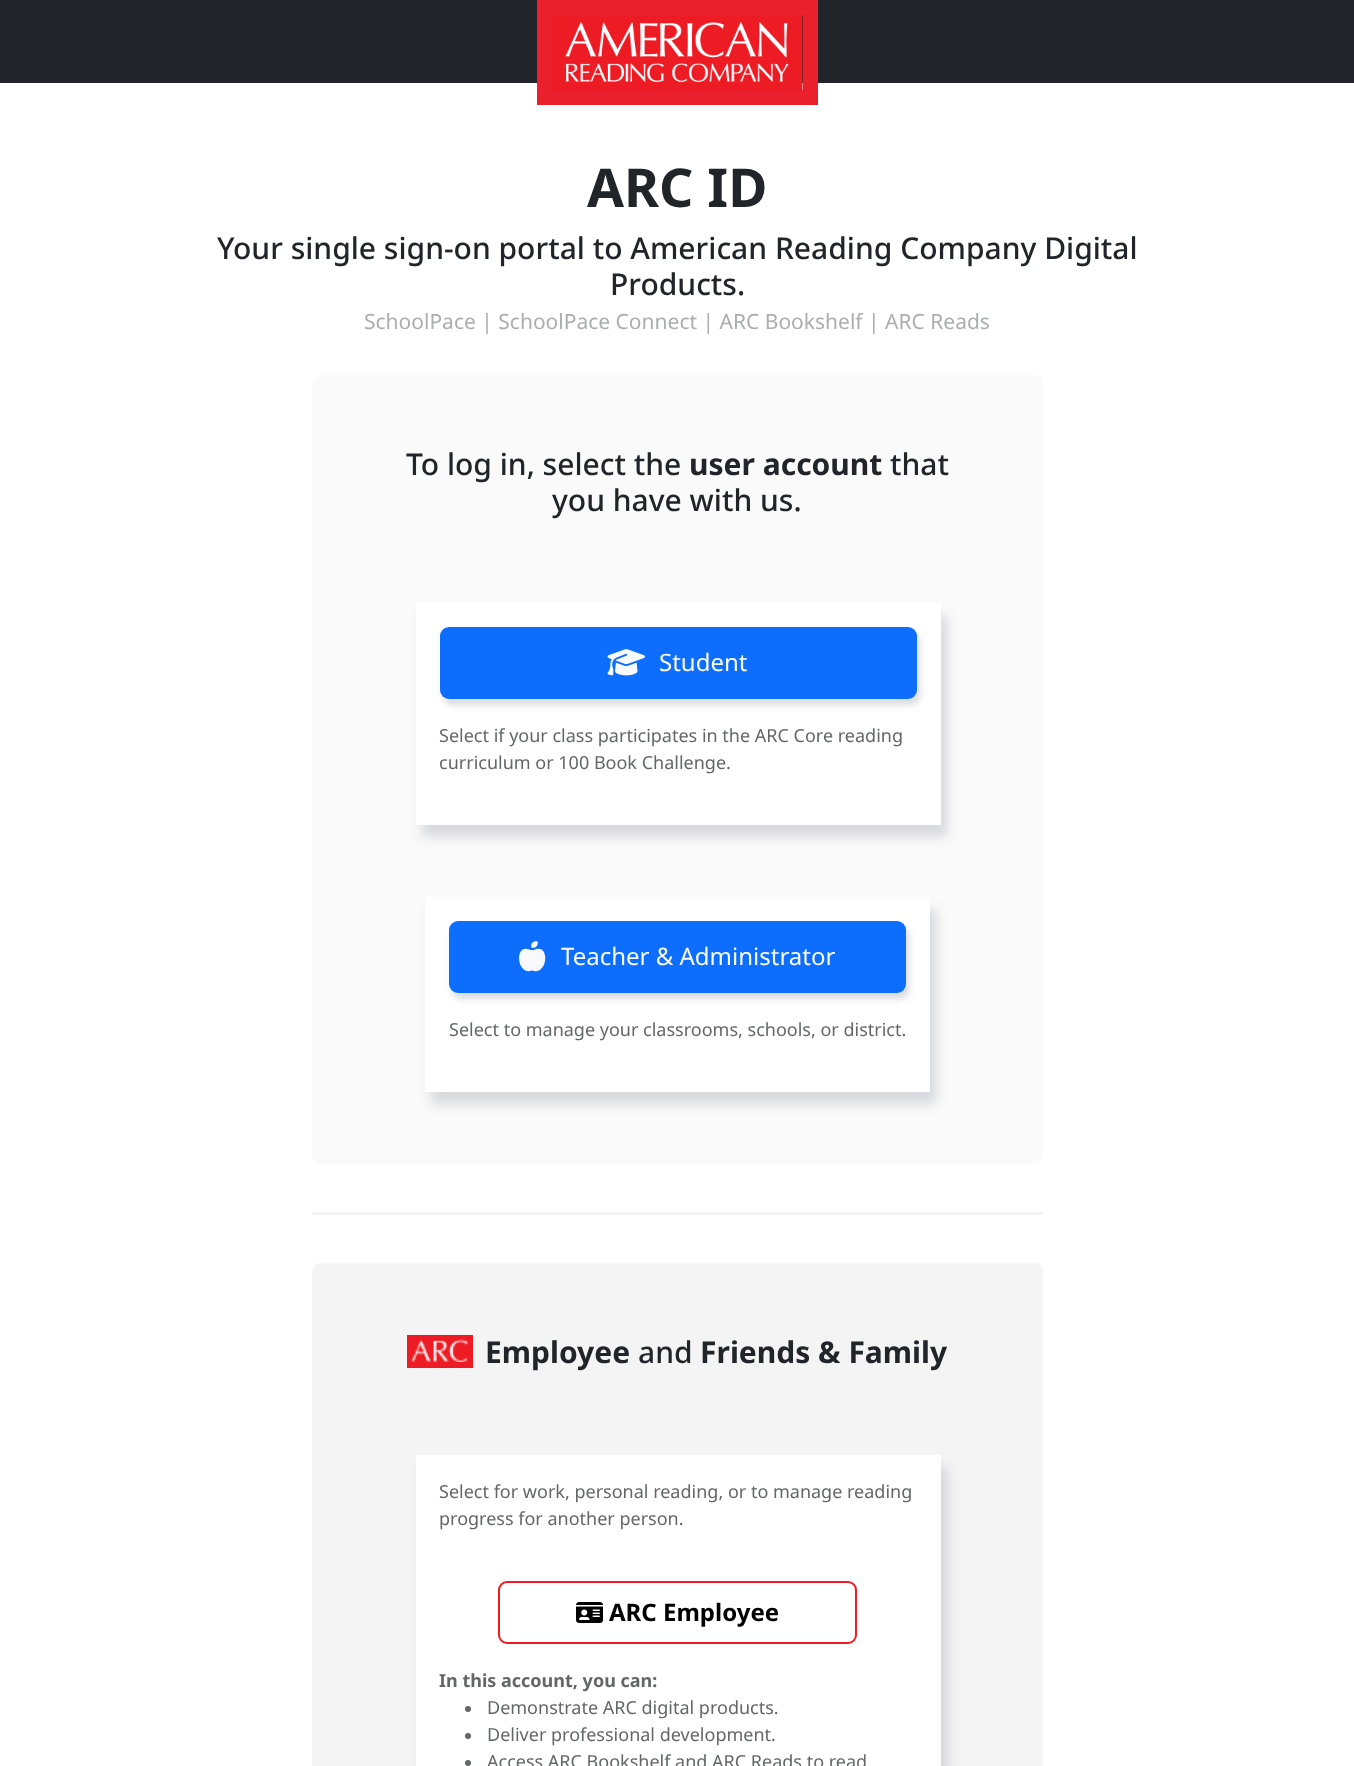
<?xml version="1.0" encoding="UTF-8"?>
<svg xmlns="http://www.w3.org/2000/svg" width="1354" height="1766">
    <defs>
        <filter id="blur1" x="-50%" y="-200%" width="200%" height="500%"><feGaussianBlur stdDeviation="6"/></filter>
        <filter id="blur2" x="-50%" y="-200%" width="200%" height="500%"><feGaussianBlur stdDeviation="3"/></filter>
    </defs>
    <rect width="100%" height="100%" fill="#FFFFFF"/>
    <rect x="0" y="0" width="1354" height="83" fill="#212529"/>
    <rect x="544.5" y="7.5" width="266" height="90" fill="none" stroke="#EA212D" stroke-width="15"/>
    <image x="552" y="15" width="251" height="75" href="img_01.png"/>
    <text x="587" y="207" font-family="Noto Sans" font-size="53.5" font-weight="700" fill="#212529">ARC ID</text>
    <text x="217" y="259" font-family="Noto Sans" font-size="30" font-weight="500" fill="#212529">Your single sign-on portal to American Reading Company Digital</text>
    <text x="610" y="295" font-family="Noto Sans" font-size="30" font-weight="500" fill="#212529">Products.</text>
    <text x="364" y="329" font-family="Noto Sans" font-size="21" fill="#ACADAF">SchoolPace | SchoolPace Connect | ARC Bookshelf | ARC Reads</text>
    <rect x="312" y="375" width="731" height="789" rx="9" fill="#FAFAFA"/>
    <text x="406" y="475" font-family="Noto Sans" font-size="30" font-weight="500" fill="#212529">To log in, select the</text>
    <text x="689" y="475" font-family="Noto Sans" font-size="30" font-weight="700" fill="#212529">user account</text>
    <text x="890" y="475" font-family="Noto Sans" font-size="30" font-weight="500" fill="#212529">that</text>
    <text x="552" y="511" font-family="Noto Sans" font-size="30" font-weight="500" fill="#212529">you have with us.</text>
    <rect x="422" y="615" width="525" height="222" fill="#717383" fill-opacity="0.25" filter="url(#blur1)"/>
    <rect x="416" y="603" width="525" height="222" fill="#FFFFFF"/>
    <rect x="443" y="633" width="477" height="72" rx="9" fill="#717383" fill-opacity="0.25" filter="url(#blur2)"/>
    <rect x="440" y="627" width="477" height="72" rx="9" fill="#0D6EFD"/>
    <image x="607" y="649" width="38" height="27" href="img_02.png"/>
    <text x="659" y="671" font-family="Noto Sans" font-size="24" fill="#F8F9FA">Student</text>
    <text font-family="Noto Sans" font-size="18" fill="#646669">
        <tspan x="439" y="742">Select if your class participates in the ARC Core reading</tspan>
        <tspan x="439" y="769">curriculum or 100 Book Challenge.</tspan>
    </text>
    <rect x="431" y="909" width="505" height="195" fill="#717383" fill-opacity="0.25" filter="url(#blur1)"/>
    <rect x="425" y="897" width="505" height="195" fill="#FFFFFF"/>
    <rect x="452" y="927" width="457" height="72" rx="9" fill="#717383" fill-opacity="0.25" filter="url(#blur2)"/>
    <rect x="449" y="921" width="457" height="72" rx="9" fill="#0D6EFD"/>
    <image x="519" y="941" width="27" height="31" href="img_03.png"/>
    <text x="561" y="965" font-family="Noto Sans" font-size="24" fill="#F8F9FA">Teacher &amp; Administrator</text>
    <text x="449" y="1036" font-family="Noto Sans" font-size="18" fill="#646669">Select to manage your classrooms, schools, or district.</text>
    <rect x="312" y="1212" width="731" height="3" fill="#F2F2F2"/>
    <rect x="312" y="1263" width="731" height="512" rx="9" fill="#F4F4F4"/>
    <rect x="407" y="1335" width="66" height="33" fill="#ED1C24"/>
    <image x="411" y="1339" width="57" height="23" href="img_04.png"/>
    <text x="485" y="1363" font-family="Noto Sans" font-size="30" font-weight="700" fill="#212529">Employee</text>
    <text x="638" y="1363" font-family="Noto Sans" font-size="30" font-weight="500" fill="#212529">and</text>
    <text x="700" y="1363" font-family="Noto Sans" font-size="30" font-weight="700" fill="#212529">Friends &amp; Family</text>
    <rect x="422" y="1467" width="525" height="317" fill="#717383" fill-opacity="0.25" filter="url(#blur1)"/>
    <rect x="416" y="1455" width="525" height="311" fill="#FFFFFF"/>
    <text font-family="Noto Sans" font-size="18" fill="#646669">
        <tspan x="439" y="1498">Select for work, personal reading, or to manage reading</tspan>
        <tspan x="439" y="1525">progress for another person.</tspan>
    </text>
    <rect x="499" y="1582" width="357" height="61" rx="8" fill="none" stroke="#ED1C24" stroke-width="2"/>
    <image x="576" y="1602" width="27" height="21" href="img_05.png"/>
    <text x="609" y="1621" font-family="Noto Sans" font-size="24" font-weight="700" fill="#000000">ARC Employee</text>
    <text x="439" y="1687" font-family="Noto Sans" font-size="18" font-weight="700" fill="#646669">In this account, you can:</text>
    <circle cx="468" cy="1709" r="3" fill="#646669"/>
    <text x="487" y="1714" font-family="Noto Sans" font-size="18" fill="#646669">Demonstrate ARC digital products.</text>
    <circle cx="468" cy="1736" r="3" fill="#646669"/>
    <text x="487" y="1741" font-family="Noto Sans" font-size="18" fill="#646669">Deliver professional development.</text>
    <circle cx="468" cy="1763" r="3" fill="#646669"/>
    <text x="487" y="1768" font-family="Noto Sans" font-size="18" fill="#646669">Access ARC Bookshelf and ARC Reads to read</text>
</svg>
